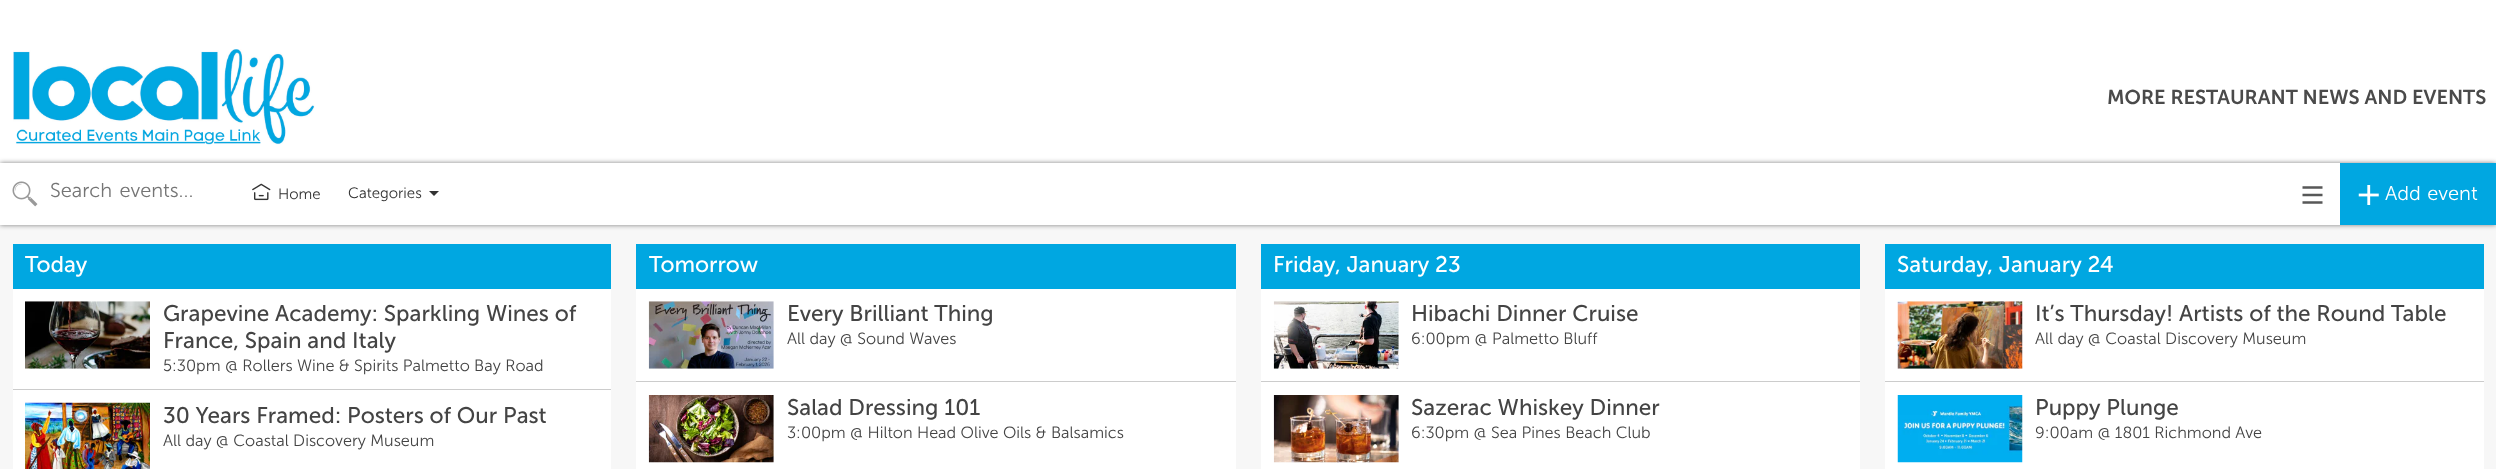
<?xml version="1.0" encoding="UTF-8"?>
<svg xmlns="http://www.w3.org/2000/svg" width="2496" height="469">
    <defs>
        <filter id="blur1" x="-50%" y="-200%" width="200%" height="500%"><feGaussianBlur stdDeviation="2.5"/></filter>
    </defs>
    <rect width="100%" height="100%" fill="#FFFFFF"/>
    <image x="13" y="49" width="302" height="96" href="img_01.png"/>
    <text x="2107" y="104" font-family="Museo Sans" font-size="20" font-weight="600" fill="#4A4A4A">MORE RESTAURANT NEWS AND EVENTS</text>
    <rect x="0" y="225" width="2496" height="244" fill="#F7F7F7"/>
    <rect x="0" y="163" width="2496" height="62" fill="#000000" fill-opacity="0.5" filter="url(#blur1)"/>
    <rect x="0" y="163" width="2340" height="62" fill="#FFFFFF"/>
    <image x="12" y="181" width="26" height="26" href="img_02.png"/>
    <text x="50" y="197" word-spacing="2" font-family="Museo Sans" font-size="20" font-weight="300" fill="#757575">Search events...</text>
    <image x="252" y="183" width="19" height="18" href="img_03.png"/>
    <text x="278" y="199" font-family="Museo Sans" font-size="15" font-weight="300" fill="#333333">Home</text>
    <text x="348" y="198" font-family="Museo Sans" font-size="15" font-weight="300" fill="#333333">Categories</text>
    <path d="M 429 191 H 439 L 434 196 Z" fill="#333333"/>
    <image x="2302" y="186" width="21" height="18" href="img_04.png"/>
    <rect x="2340" y="163" width="156" height="62" fill="#00A7E1"/>
    <image x="2358" y="185" width="21" height="20" href="img_05.png"/>
    <text x="2385" y="200" word-spacing="1" font-family="Museo Sans" font-size="20" font-weight="300" fill="#FFFFFF">Add event</text>
    <rect x="13" y="244" width="598" height="45" fill="#00A7E1"/>
    <text x="25" y="272" font-family="Museo Sans" font-size="22.5" fill="#FFFFFF">Today</text>
    <rect x="13" y="289" width="598" height="100" fill="#FFFFFF"/>
    <rect x="13" y="389" width="598" height="1" fill="#CCCCCC"/>
    <image x="25" y="301" width="125" height="68" href="img_06.png"/>
    <text font-family="Museo Sans" font-size="22.5" fill="#444444">
        <tspan x="163" y="321">Grapevine Academy: Sparkling Wines of</tspan>
        <tspan x="163" y="348">France, Spain and Italy</tspan>
    </text>
    <text x="163" y="371" font-family="Museo Sans" font-size="16.25" font-weight="300" fill="#444444">5:30pm @ Rollers Wine &amp; Spirits Palmetto Bay Road</text>
    <rect x="13" y="390" width="598" height="79" fill="#FFFFFF"/>
    <image x="25" y="402" width="125" height="67" href="img_07.png"/>
    <text x="163" y="423" font-family="Museo Sans" font-size="22.5" fill="#444444">30 Years Framed: Posters of Our Past</text>
    <text x="163" y="446" font-family="Museo Sans" font-size="16.25" font-weight="300" fill="#444444">All day @ Coastal Discovery Museum</text>
    <rect x="636" y="244" width="600" height="45" fill="#00A7E1"/>
    <text x="649" y="272" font-family="Museo Sans" font-size="22.5" fill="#FFFFFF">Tomorrow</text>
    <rect x="636" y="289" width="600" height="180" fill="#FFFFFF"/>
    <rect x="636" y="381" width="600" height="1" fill="#CCCCCC"/>
    <image x="648" y="301" width="126" height="68" href="img_08.png"/>
    <text x="787" y="321" font-family="Museo Sans" font-size="22.5" fill="#444444">Every Brilliant Thing</text>
    <text x="787" y="344" font-family="Museo Sans" font-size="16.25" font-weight="300" fill="#444444">All day @ Sound Waves</text>
    <image x="648" y="395" width="126" height="68" href="img_09.png"/>
    <text x="787" y="415" font-family="Museo Sans" font-size="22.5" fill="#444444">Salad Dressing 101</text>
    <text x="787" y="438" font-family="Museo Sans" font-size="16.25" font-weight="300" fill="#444444">3:00pm @ Hilton Head Olive Oils &amp; Balsamics</text>
    <rect x="1261" y="244" width="599" height="45" fill="#00A7E1"/>
    <text x="1273" y="272" font-family="Museo Sans" font-size="22.5" fill="#FFFFFF">Friday, January 23</text>
    <rect x="1261" y="289" width="599" height="180" fill="#FFFFFF"/>
    <rect x="1261" y="381" width="599" height="1" fill="#CCCCCC"/>
    <image x="1273" y="301" width="126" height="68" href="img_10.png"/>
    <text x="1411" y="321" font-family="Museo Sans" font-size="22.5" fill="#444444">Hibachi Dinner Cruise</text>
    <text x="1411" y="344" font-family="Museo Sans" font-size="16.25" font-weight="300" fill="#444444">6:00pm @ Palmetto Bluff</text>
    <image x="1273" y="395" width="126" height="68" href="img_11.png"/>
    <text x="1411" y="415" font-family="Museo Sans" font-size="22.5" fill="#444444">Sazerac Whiskey Dinner</text>
    <text x="1411" y="438" font-family="Museo Sans" font-size="16.25" font-weight="300" fill="#444444">6:30pm @ Sea Pines Beach Club</text>
    <rect x="1885" y="244" width="599" height="45" fill="#00A7E1"/>
    <text x="1897" y="272" font-family="Museo Sans" font-size="22.5" fill="#FFFFFF">Saturday, January 24</text>
    <rect x="1885" y="289" width="599" height="180" fill="#FFFFFF"/>
    <rect x="1885" y="381" width="599" height="1" fill="#CCCCCC"/>
    <image x="1897" y="301" width="126" height="68" href="img_12.png"/>
    <text x="2035" y="321" font-family="Museo Sans" font-size="22.5" fill="#444444">It’s Thursday! Artists of the Round Table</text>
    <text x="2035" y="344" font-family="Museo Sans" font-size="16.25" font-weight="300" fill="#444444">All day @ Coastal Discovery Museum</text>
    <image x="1897" y="395" width="126" height="68" href="img_13.png"/>
    <text x="2035" y="415" font-family="Museo Sans" font-size="22.5" fill="#444444">Puppy Plunge</text>
    <text x="2035" y="438" font-family="Museo Sans" font-size="16.25" font-weight="300" fill="#444444">9:00am @ 1801 Richmond Ave</text>
</svg>
